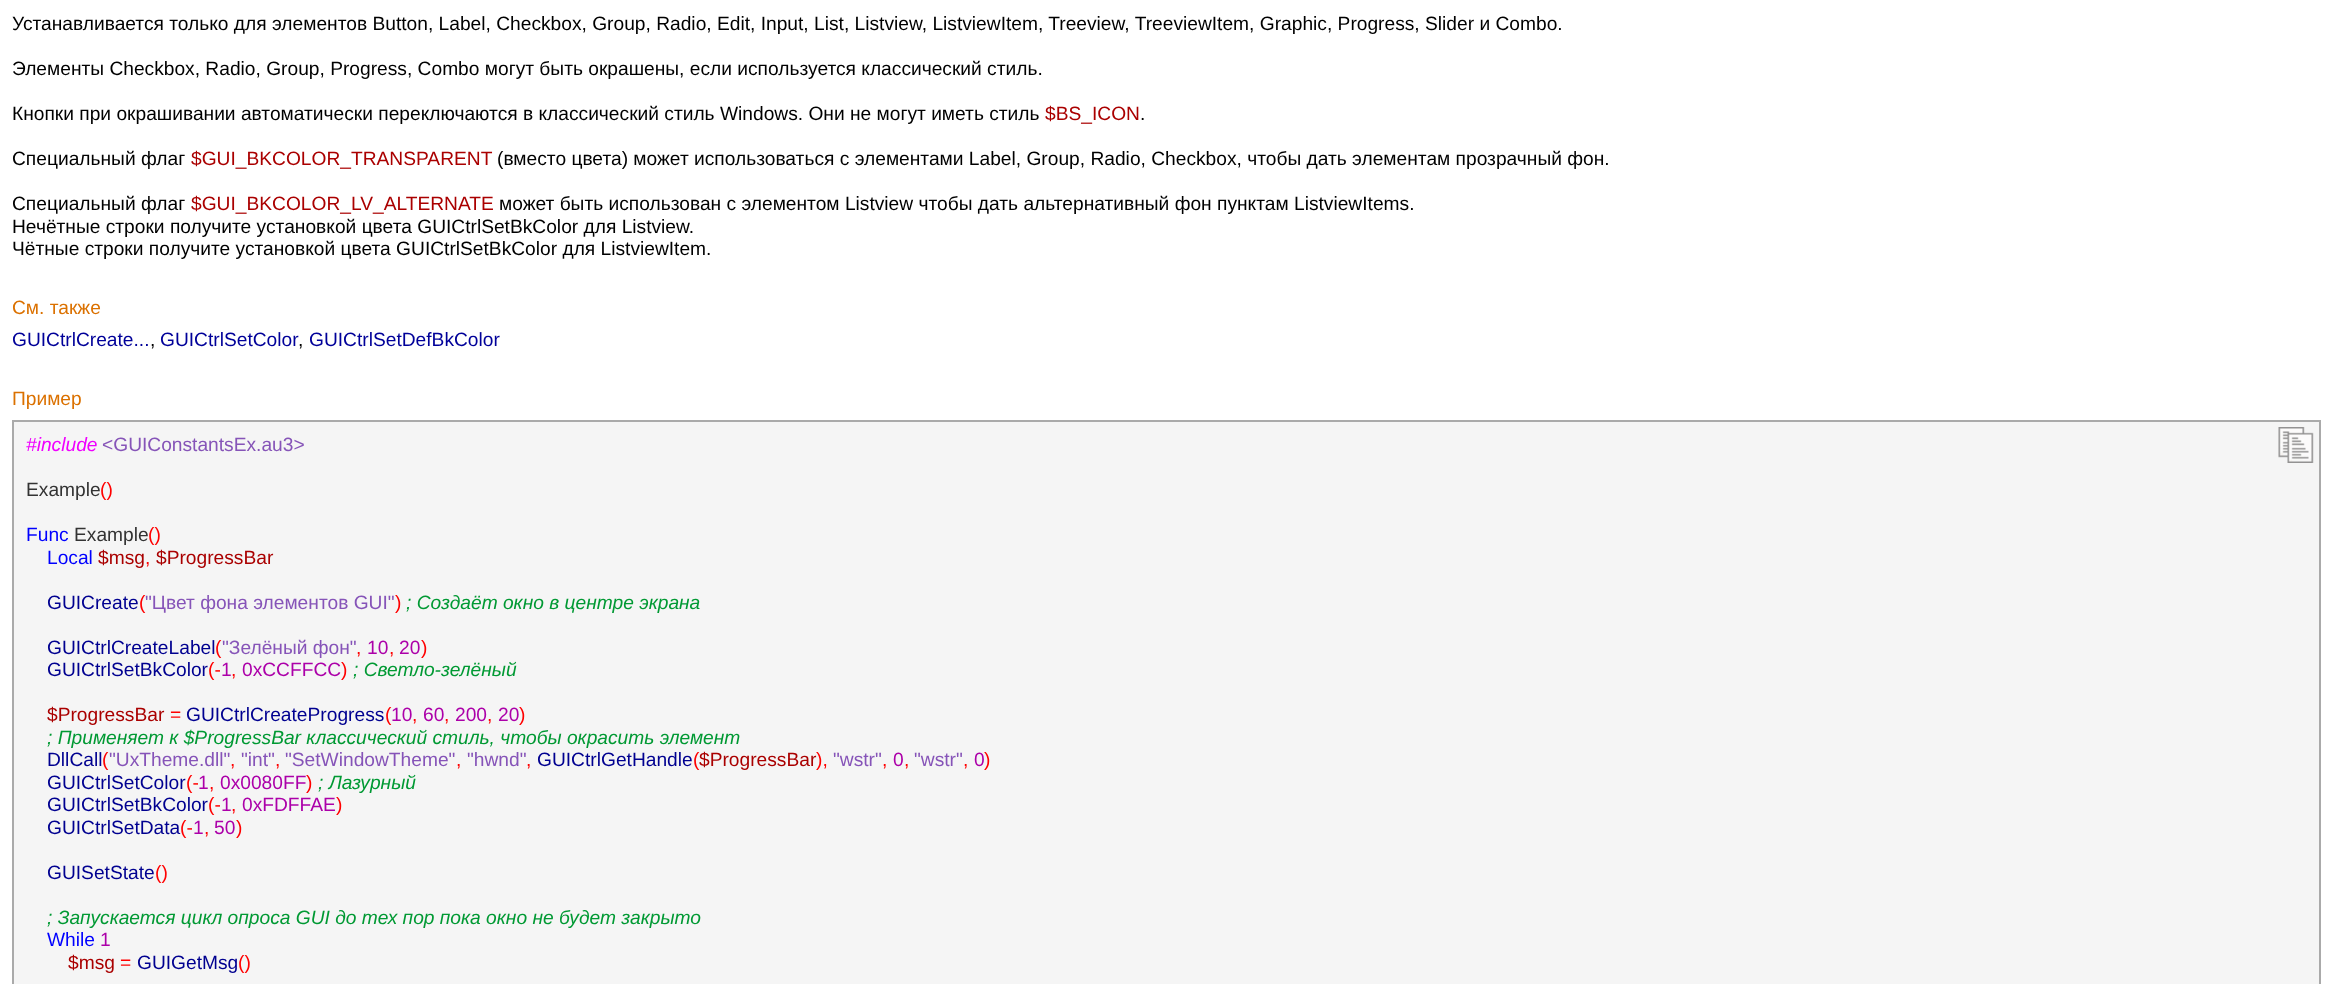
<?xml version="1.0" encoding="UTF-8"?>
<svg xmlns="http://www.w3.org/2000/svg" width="2332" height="984">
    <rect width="100%" height="100%" fill="#FFFFFF"/>
    <text x="12" y="30" font-family="Liberation Sans" font-size="19.2" fill="#000000">Устанавливается только для элементов Button, Label, Checkbox, Group, Radio, Edit, Input, List, Listview, ListviewItem, Treeview, TreeviewItem, Graphic, Progress, Slider и Combo.</text>
    <text x="12" y="75" font-family="Liberation Sans" font-size="19.2" fill="#000000">Элементы Checkbox, Radio, Group, Progress, Combo могут быть окрашены, если используется классический стиль.</text>
    <text x="12" y="120" font-family="Liberation Sans" font-size="19.2" fill="#000000">Кнопки при окрашивании автоматически переключаются в классический стиль Windows. Они не могут иметь стиль</text>
    <text x="1045" y="120" font-family="Liberation Sans" font-size="19.2" fill="#AA0000">$BS_ICON</text>
    <text x="1140" y="120" font-family="Liberation Sans" font-size="19.2" fill="#000000">.</text>
    <text x="12" y="165" font-family="Liberation Sans" font-size="19.2" fill="#000000">Специальный флаг</text>
    <text x="191" y="165" font-family="Liberation Sans" font-size="19.2" fill="#AA0000">$GUI_BKCOLOR_TRANSPARENT</text>
    <text x="497" y="165" font-family="Liberation Sans" font-size="19.2" fill="#000000">(вместо цвета) может использоваться с элементами Label, Group, Radio, Checkbox, чтобы дать элементам прозрачный фон.</text>
    <text x="12" y="210" font-family="Liberation Sans" font-size="19.2" fill="#000000">Специальный флаг</text>
    <text x="191" y="210" font-family="Liberation Sans" font-size="19.2" fill="#AA0000">$GUI_BKCOLOR_LV_ALTERNATE</text>
    <text x="499" y="210" font-family="Liberation Sans" font-size="19.2" fill="#000000">может быть использован с элементом Listview чтобы дать альтернативный фон пунктам ListviewItems.</text>
    <text font-family="Liberation Sans" font-size="19.2" fill="#000000">
        <tspan x="12" y="233">Нечётные строки получите установкой цвета GUICtrlSetBkColor для Listview.</tspan>
        <tspan x="12" y="255">Чётные строки получите установкой цвета GUICtrlSetBkColor для ListviewItem.</tspan>
    </text>
    <text x="12" y="314" font-family="Liberation Sans" font-size="19.2" fill="#DB7100">См. также</text>
    <text x="12" y="346" font-family="Liberation Sans" font-size="19.2" fill="#000099">GUICtrlCreate...</text>
    <text x="150" y="346" font-family="Liberation Sans" font-size="19.2" fill="#000000">,</text>
    <text x="160" y="346" font-family="Liberation Sans" font-size="19.2" fill="#000099">GUICtrlSetColor</text>
    <text x="298" y="346" font-family="Liberation Sans" font-size="19.2" fill="#000000">,</text>
    <text x="309" y="346" font-family="Liberation Sans" font-size="19.2" fill="#000099">GUICtrlSetDefBkColor</text>
    <text x="12" y="405" font-family="Liberation Sans" font-size="19.2" fill="#DB7100">Пример</text>
    <rect x="13" y="421" width="2307" height="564" fill="#F5F5F5" stroke="#AAAAAA" stroke-width="2"/>
    <text x="26" y="451" font-family="Liberation Sans" font-size="19.2" font-style="italic" fill="#F000FF">#include</text>
    <text x="102" y="451" font-family="Liberation Sans" font-size="19.2" fill="#8654B8">&lt;GUIConstantsEx.au3&gt;</text>
    <text x="26" y="496" font-family="Liberation Sans" font-size="19.2" fill="#333333">Example</text>
    <text x="100" y="496" font-family="Liberation Sans" font-size="19.2" fill="#FF0000">()</text>
    <text x="26" y="541" font-family="Liberation Sans" font-size="19.2" fill="#0000FF">Func</text>
    <text x="74" y="541" font-family="Liberation Sans" font-size="19.2" fill="#333333">Example</text>
    <text x="148" y="541" font-family="Liberation Sans" font-size="19.2" fill="#FF0000">()</text>
    <text x="47" y="564" font-family="Liberation Sans" font-size="19.2" fill="#0000FF">Local</text>
    <text x="98" y="564" font-family="Liberation Sans" font-size="19.2" fill="#AA0000">$msg</text>
    <text x="145" y="564" font-family="Liberation Sans" font-size="19.2" fill="#FF0000">,</text>
    <text x="156" y="564" font-family="Liberation Sans" font-size="19.2" fill="#AA0000">$ProgressBar</text>
    <text x="47" y="609" font-family="Liberation Sans" font-size="19.2" fill="#000090">GUICreate</text>
    <text x="139" y="609" font-family="Liberation Sans" font-size="19.2" fill="#FF0000">(</text>
    <text x="145" y="609" font-family="Liberation Sans" font-size="19.2" fill="#8654B8">"Цвет фона элементов GUI"</text>
    <text x="395" y="609" font-family="Liberation Sans" font-size="19.2" fill="#FF0000">)</text>
    <text x="406" y="609" font-family="Liberation Sans" font-size="19.2" font-style="italic" fill="#009933">; Создаёт окно в центре экрана</text>
    <text x="47" y="654" font-family="Liberation Sans" font-size="19.2" fill="#000090">GUICtrlCreateLabel</text>
    <text x="215" y="654" font-family="Liberation Sans" font-size="19.2" fill="#FF0000">(</text>
    <text x="222" y="654" font-family="Liberation Sans" font-size="19.2" fill="#8654B8">"Зелёный фон"</text>
    <text x="356" y="654" font-family="Liberation Sans" font-size="19.2" fill="#FF0000">,</text>
    <text x="367" y="654" font-family="Liberation Sans" font-size="19.2" fill="#AC00A9">10</text>
    <text x="389" y="654" font-family="Liberation Sans" font-size="19.2" fill="#FF0000">,</text>
    <text x="399" y="654" font-family="Liberation Sans" font-size="19.2" fill="#AC00A9">20</text>
    <text x="421" y="654" font-family="Liberation Sans" font-size="19.2" fill="#FF0000">)</text>
    <text x="47" y="676" font-family="Liberation Sans" font-size="19.2" fill="#000090">GUICtrlSetBkColor</text>
    <text x="208" y="676" font-family="Liberation Sans" font-size="19.2" fill="#FF0000">(-</text>
    <text x="221" y="676" font-family="Liberation Sans" font-size="19.2" fill="#AC00A9">1</text>
    <text x="231" y="676" font-family="Liberation Sans" font-size="19.2" fill="#FF0000">,</text>
    <text x="242" y="676" font-family="Liberation Sans" font-size="19.2" fill="#AC00A9">0xCCFFCC</text>
    <text x="341" y="676" font-family="Liberation Sans" font-size="19.2" fill="#FF0000">)</text>
    <text x="353" y="676" font-family="Liberation Sans" font-size="19.2" font-style="italic" fill="#009933">; Светло-зелёный</text>
    <text x="47" y="721" font-family="Liberation Sans" font-size="19.2" fill="#AA0000">$ProgressBar</text>
    <text x="170" y="721" font-family="Liberation Sans" font-size="19.2" fill="#FF0000">=</text>
    <text x="186" y="721" font-family="Liberation Sans" font-size="19.2" fill="#000090">GUICtrlCreateProgress</text>
    <text x="385" y="721" font-family="Liberation Sans" font-size="19.2" fill="#FF0000">(</text>
    <text x="391" y="721" font-family="Liberation Sans" font-size="19.2" fill="#AC00A9">10</text>
    <text x="423" y="721" font-family="Liberation Sans" font-size="19.2" fill="#AC00A9">60</text>
    <text x="455" y="721" font-family="Liberation Sans" font-size="19.2" fill="#AC00A9">200</text>
    <text x="498" y="721" font-family="Liberation Sans" font-size="19.2" fill="#AC00A9">20</text>
    <text x="519" y="721" font-family="Liberation Sans" font-size="19.2" fill="#FF0000">)</text>
    <text x="412" y="721" font-family="Liberation Sans" font-size="19.2" fill="#FF0000">,</text>
    <text x="444" y="721" font-family="Liberation Sans" font-size="19.2" fill="#FF0000">,</text>
    <text x="487" y="721" font-family="Liberation Sans" font-size="19.2" fill="#FF0000">,</text>
    <text x="47" y="744" font-family="Liberation Sans" font-size="19.2" font-style="italic" fill="#009933">; Применяет к $ProgressBar классический стиль, чтобы окрасить элемент</text>
    <text x="47" y="766" font-family="Liberation Sans" font-size="19.2" fill="#000090">DllCall</text>
    <text x="102" y="766" font-family="Liberation Sans" font-size="19.2" fill="#FF0000">(</text>
    <text x="109" y="766" font-family="Liberation Sans" font-size="19.2" fill="#8654B8">"UxTheme.dll"</text>
    <text x="230" y="766" font-family="Liberation Sans" font-size="19.2" fill="#FF0000">,</text>
    <text x="241" y="766" font-family="Liberation Sans" font-size="19.2" fill="#8654B8">"int"</text>
    <text x="275" y="766" font-family="Liberation Sans" font-size="19.2" fill="#FF0000">,</text>
    <text x="285" y="766" font-family="Liberation Sans" font-size="19.2" fill="#8654B8">"SetWindowTheme"</text>
    <text x="456" y="766" font-family="Liberation Sans" font-size="19.2" fill="#FF0000">,</text>
    <text x="467" y="766" font-family="Liberation Sans" font-size="19.2" fill="#8654B8">"hwnd"</text>
    <text x="526" y="766" font-family="Liberation Sans" font-size="19.2" fill="#FF0000">,</text>
    <text x="537" y="766" font-family="Liberation Sans" font-size="19.2" fill="#000090">GUICtrlGetHandle</text>
    <text x="693" y="766" font-family="Liberation Sans" font-size="19.2" fill="#FF0000">(</text>
    <text x="699" y="766" font-family="Liberation Sans" font-size="19.2" fill="#AA0000">$ProgressBar</text>
    <text x="816" y="766" font-family="Liberation Sans" font-size="19.2" fill="#FF0000">),</text>
    <text x="833" y="766" font-family="Liberation Sans" font-size="19.2" fill="#8654B8">"wstr"</text>
    <text x="882" y="766" font-family="Liberation Sans" font-size="19.2" fill="#FF0000">,</text>
    <text x="893" y="766" font-family="Liberation Sans" font-size="19.2" fill="#AC00A9">0</text>
    <text x="904" y="766" font-family="Liberation Sans" font-size="19.2" fill="#FF0000">,</text>
    <text x="914" y="766" font-family="Liberation Sans" font-size="19.2" fill="#8654B8">"wstr"</text>
    <text x="963" y="766" font-family="Liberation Sans" font-size="19.2" fill="#FF0000">,</text>
    <text x="974" y="766" font-family="Liberation Sans" font-size="19.2" fill="#AC00A9">0</text>
    <text x="984" y="766" font-family="Liberation Sans" font-size="19.2" fill="#FF0000">)</text>
    <text x="47" y="789" font-family="Liberation Sans" font-size="19.2" fill="#000090">GUICtrlSetColor</text>
    <text x="186" y="789" font-family="Liberation Sans" font-size="19.2" fill="#FF0000">(-</text>
    <text x="198" y="789" font-family="Liberation Sans" font-size="19.2" fill="#AC00A9">1</text>
    <text x="209" y="789" font-family="Liberation Sans" font-size="19.2" fill="#FF0000">,</text>
    <text x="220" y="789" font-family="Liberation Sans" font-size="19.2" fill="#AC00A9">0x0080FF</text>
    <text x="306" y="789" font-family="Liberation Sans" font-size="19.2" fill="#FF0000">)</text>
    <text x="318" y="789" font-family="Liberation Sans" font-size="19.2" font-style="italic" fill="#009933">; Лазурный</text>
    <text x="47" y="811" font-family="Liberation Sans" font-size="19.2" fill="#000090">GUICtrlSetBkColor</text>
    <text x="208" y="811" font-family="Liberation Sans" font-size="19.2" fill="#FF0000">(-</text>
    <text x="221" y="811" font-family="Liberation Sans" font-size="19.2" fill="#AC00A9">1</text>
    <text x="231" y="811" font-family="Liberation Sans" font-size="19.2" fill="#FF0000">,</text>
    <text x="242" y="811" font-family="Liberation Sans" font-size="19.2" fill="#AC00A9">0xFDFFAE</text>
    <text x="336" y="811" font-family="Liberation Sans" font-size="19.2" fill="#FF0000">)</text>
    <text x="47" y="834" font-family="Liberation Sans" font-size="19.2" fill="#000090">GUICtrlSetData</text>
    <text x="180" y="834" font-family="Liberation Sans" font-size="19.2" fill="#FF0000">(-</text>
    <text x="193" y="834" font-family="Liberation Sans" font-size="19.2" fill="#AC00A9">1</text>
    <text x="204" y="834" font-family="Liberation Sans" font-size="19.2" fill="#FF0000">,</text>
    <text x="214" y="834" font-family="Liberation Sans" font-size="19.2" fill="#AC00A9">50</text>
    <text x="236" y="834" font-family="Liberation Sans" font-size="19.2" fill="#FF0000">)</text>
    <text x="47" y="879" font-family="Liberation Sans" font-size="19.2" fill="#000090">GUISetState</text>
    <text x="155" y="879" font-family="Liberation Sans" font-size="19.2" fill="#FF0000">()</text>
    <text x="47" y="924" font-family="Liberation Sans" font-size="19.2" font-style="italic" fill="#009933">; Запускается цикл опроса GUI до тех пор пока окно не будет закрыто</text>
    <text x="47" y="946" font-family="Liberation Sans" font-size="19.2" fill="#0000FF">While</text>
    <text x="100" y="946" font-family="Liberation Sans" font-size="19.2" fill="#AC00A9">1</text>
    <text x="68" y="969" font-family="Liberation Sans" font-size="19.2" fill="#AA0000">$msg</text>
    <text x="120" y="969" font-family="Liberation Sans" font-size="19.2" fill="#FF0000">=</text>
    <text x="137" y="969" font-family="Liberation Sans" font-size="19.2" fill="#000090">GUIGetMsg</text>
    <text x="238" y="969" font-family="Liberation Sans" font-size="19.2" fill="#FF0000">()</text>
    <image x="2278" y="427" width="36" height="36" href="img_01.png"/>
</svg>
